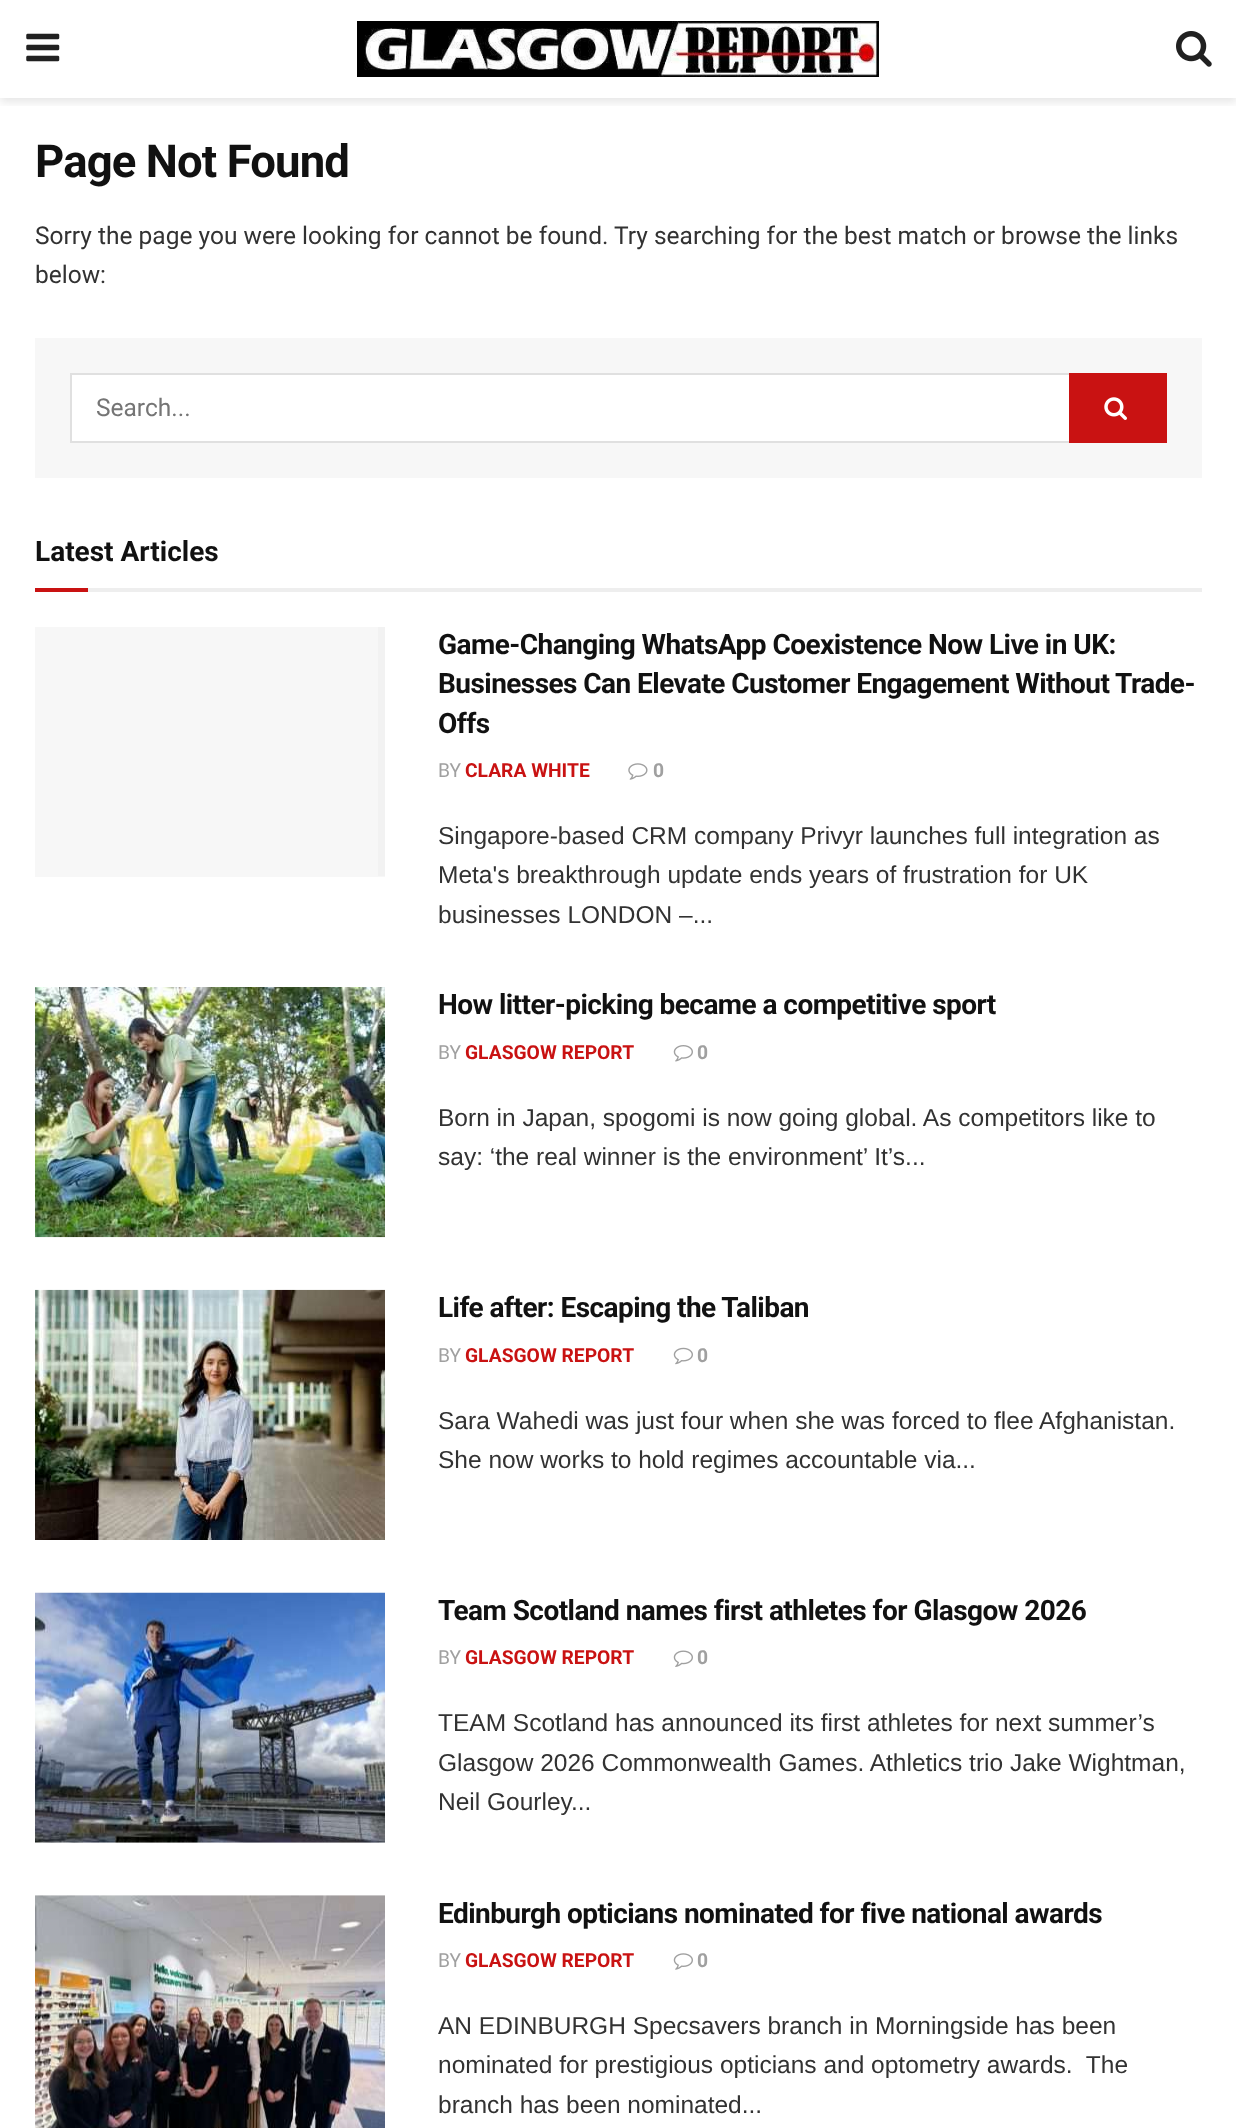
<?xml version="1.0" encoding="UTF-8"?>
<svg xmlns="http://www.w3.org/2000/svg" width="1236" height="2128">
    <defs>
        <clipPath id="clip1"><rect x="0" y="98" width="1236" height="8"/></clipPath>
        <filter id="blur1" x="-50%" y="-200%" width="200%" height="500%"><feGaussianBlur stdDeviation="5"/></filter>
    </defs>
    <rect width="100%" height="100%" fill="#FFFFFF"/>
    <g clip-path="url(#clip1)">
        <rect x="0" y="4" width="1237" height="98" fill="#000000" fill-opacity="0.1" filter="url(#blur1)"/>
    </g>
    <image x="26" y="33" width="34" height="29" href="img_01.png"/>
    <image x="357" y="21" width="522" height="56" href="img_02.png"/>
    <image x="1176" y="31" width="36" height="36" href="img_03.png"/>
    <text x="35" y="177" font-family="Roboto" font-size="45.5" font-weight="700" letter-spacing="-0.9" fill="#111111">Page Not Found</text>
    <text font-family="Roboto" font-size="24.5" fill="#323232">
        <tspan x="35" y="244">Sorry the page you were looking for cannot be found. Try searching for the best match or browse the links</tspan>
        <tspan x="35" y="283">below:</tspan>
    </text>
    <rect x="35" y="338" width="1167" height="140" fill="#F7F7F7"/>
    <rect x="72" y="375" width="997" height="66" fill="#FFFFFF"/>
    <rect x="71" y="374" width="1095" height="68" fill="none" stroke="#E0E0E0" stroke-width="2"/>
    <text x="96" y="416" font-family="Roboto" font-size="24.5" fill="#757575">Search...</text>
    <rect x="1069" y="373" width="98" height="70" fill="#C91212"/>
    <image x="1104" y="397" width="23" height="23" href="img_04.png"/>
    <rect x="88" y="588" width="1114" height="4" fill="#EEEEEE"/>
    <text x="35" y="561" font-family="Roboto" font-size="28" font-weight="700" fill="#111111">Latest Articles</text>
    <rect x="35" y="588" width="53" height="4" fill="#C91212"/>
    <rect x="35" y="627" width="350" height="250" fill="#F7F7F7"/>
    <rect x="378" y="627" width="7" height="249" fill="#F2F2F2"/>
    <text font-family="Roboto" font-size="28" font-weight="700" letter-spacing="-0.55" fill="#111111">
        <tspan x="438" y="654">Game-Changing WhatsApp Coexistence Now Live in UK:</tspan>
        <tspan x="438" y="693">Businesses Can Elevate Customer Engagement Without Trade-</tspan>
        <tspan x="438" y="733">Offs</tspan>
    </text>
    <text x="438" y="777" font-family="Roboto" font-size="19.25" fill="#A0A0A0">BY</text>
    <text x="465" y="777" font-family="Roboto" font-size="19.25" font-weight="700" fill="#C91212">CLARA WHITE</text>
    <image x="628" y="763" width="20" height="17" href="img_05.png"/>
    <text x="653" y="777" font-family="Roboto" font-size="19.25" font-weight="700" fill="#A0A0A0">0</text>
    <text font-family="Liberation Sans" font-size="24.5" fill="#323232">
        <tspan x="438" y="844">Singapore-based CRM company Privyr launches full integration as</tspan>
        <tspan x="438" y="883">Meta's breakthrough update ends years of frustration for UK</tspan>
        <tspan x="438" y="923">businesses LONDON –...</tspan>
    </text>
    <image x="35" y="987" width="350" height="251" href="img_06.png"/>
    <text x="438" y="1014" font-family="Roboto" font-size="28" font-weight="700" letter-spacing="-0.55" fill="#111111">How litter-picking became a competitive sport</text>
    <text x="438" y="1059" font-family="Roboto" font-size="19.25" fill="#A0A0A0">BY</text>
    <text x="465" y="1059" font-family="Roboto" font-size="19.25" font-weight="700" fill="#C91212">GLASGOW REPORT</text>
    <image x="673" y="1045" width="20" height="17" href="img_07.png"/>
    <text x="697" y="1059" font-family="Roboto" font-size="19.25" font-weight="700" fill="#A0A0A0">0</text>
    <text font-family="Liberation Sans" font-size="24.5" fill="#323232">
        <tspan x="438" y="1126">Born in Japan, spogomi is now going global. As competitors like to</tspan>
        <tspan x="438" y="1165">say: ‘the real winner is the environment’ It’s...</tspan>
    </text>
    <image x="35" y="1289" width="350" height="251" href="img_08.png"/>
    <text x="438" y="1317" font-family="Roboto" font-size="28" font-weight="700" letter-spacing="-0.55" fill="#111111">Life after: Escaping the Taliban</text>
    <text x="438" y="1362" font-family="Roboto" font-size="19.25" fill="#A0A0A0">BY</text>
    <text x="465" y="1362" font-family="Roboto" font-size="19.25" font-weight="700" fill="#C91212">GLASGOW REPORT</text>
    <image x="673" y="1347" width="20" height="18" href="img_09.png"/>
    <text x="697" y="1362" font-family="Roboto" font-size="19.25" font-weight="700" fill="#A0A0A0">0</text>
    <text font-family="Liberation Sans" font-size="24.5" fill="#323232">
        <tspan x="438" y="1429">Sara Wahedi was just four when she was forced to flee Afghanistan.</tspan>
        <tspan x="438" y="1468">She now works to hold regimes accountable via...</tspan>
    </text>
    <rect x="35" y="1842" width="350" height="1" fill="#F7F7F7"/>
    <image x="35" y="1592" width="350" height="251" href="img_10.png"/>
    <text x="438" y="1620" font-family="Roboto" font-size="28" font-weight="700" letter-spacing="-0.55" fill="#111111">Team Scotland names first athletes for Glasgow 2026</text>
    <text x="438" y="1664" font-family="Roboto" font-size="19.25" fill="#A0A0A0">BY</text>
    <text x="465" y="1664" font-family="Roboto" font-size="19.25" font-weight="700" fill="#C91212">GLASGOW REPORT</text>
    <image x="673" y="1650" width="20" height="17" href="img_11.png"/>
    <text x="697" y="1664" font-family="Roboto" font-size="19.25" font-weight="700" fill="#A0A0A0">0</text>
    <text font-family="Liberation Sans" font-size="24.5" fill="#323232">
        <tspan x="438" y="1731">TEAM Scotland has announced its first athletes for next summer’s</tspan>
        <tspan x="438" y="1771">Glasgow 2026 Commonwealth Games. Athletics trio Jake Wightman,</tspan>
        <tspan x="438" y="1810">Neil Gourley...</tspan>
    </text>
    <rect x="35" y="1895" width="350" height="1" fill="#F7F7F7"/>
    <image x="35" y="1895" width="350" height="233" href="img_12.png"/>
    <text x="438" y="1923" font-family="Roboto" font-size="28" font-weight="700" letter-spacing="-0.55" fill="#111111">Edinburgh opticians nominated for five national awards</text>
    <text x="438" y="1967" font-family="Roboto" font-size="19.25" fill="#A0A0A0">BY</text>
    <text x="465" y="1967" font-family="Roboto" font-size="19.25" font-weight="700" fill="#C91212">GLASGOW REPORT</text>
    <image x="673" y="1953" width="20" height="17" href="img_13.png"/>
    <text x="697" y="1967" font-family="Roboto" font-size="19.25" font-weight="700" fill="#A0A0A0">0</text>
    <text font-family="Liberation Sans" font-size="24.5" fill="#323232" xml:space="preserve"><tspan x="438" y="2034">AN EDINBURGH Specsavers branch in Morningside has been</tspan><tspan x="438" y="2073">nominated for prestigious opticians and optometry awards.  The</tspan><tspan x="438" y="2113">branch has been nominated...</tspan></text>
</svg>
